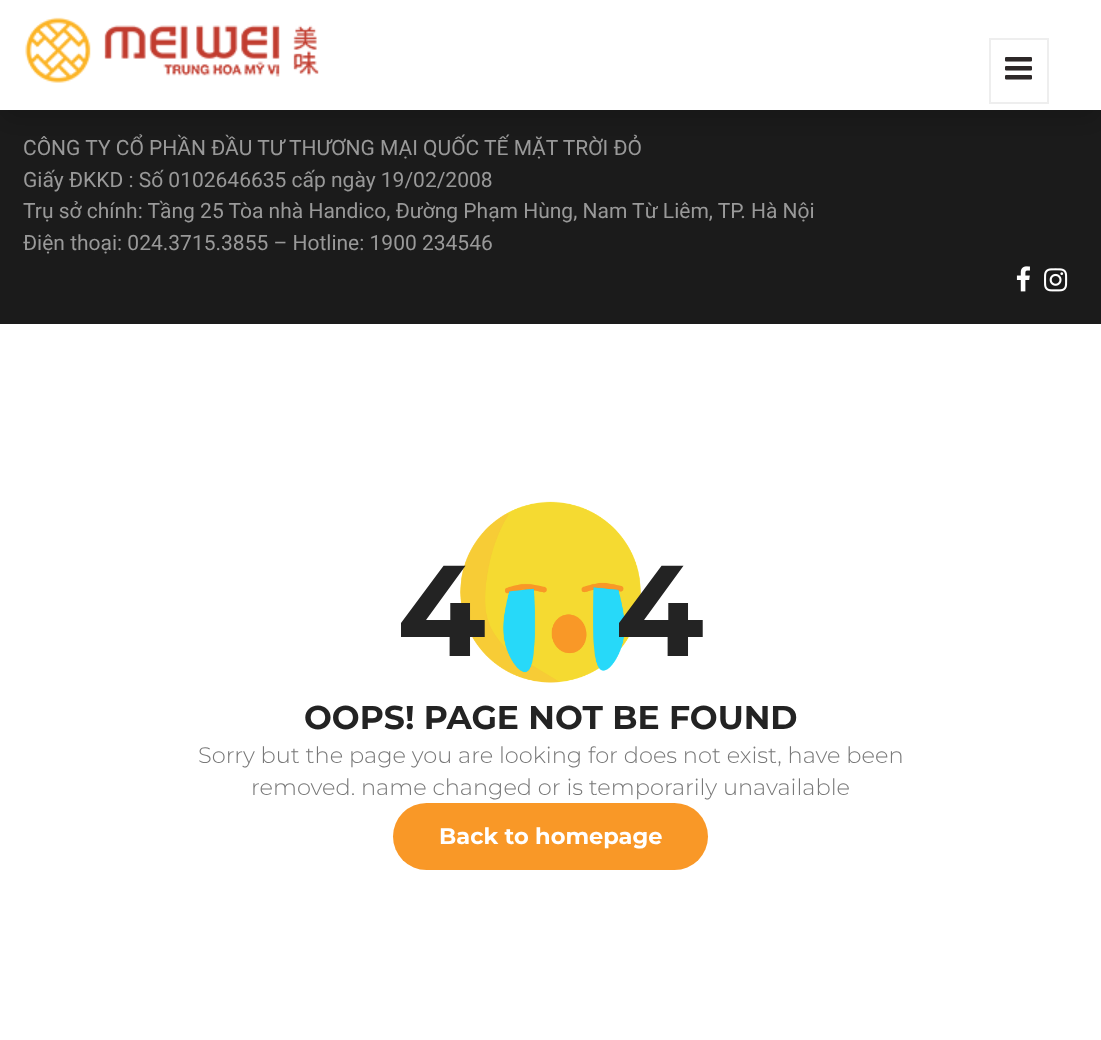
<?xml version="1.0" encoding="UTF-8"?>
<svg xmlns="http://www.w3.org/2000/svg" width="1101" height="1040">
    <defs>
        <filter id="blur1" x="-50%" y="-200%" width="200%" height="500%"><feGaussianBlur stdDeviation="12"/></filter>
    </defs>
    <rect width="100%" height="100%" fill="#FFFFFF"/>
    <rect x="0" y="110" width="1101" height="214" fill="#1B1B1B"/>
    <rect x="0" y="12" width="1101" height="110" fill="#000000" fill-opacity="0.15" filter="url(#blur1)"/>
    <rect x="0" y="0" width="1101" height="110" fill="#FFFFFF"/>
    <image x="25" y="17" width="294" height="66" href="img_01.png"/>
    <rect x="990" y="39" width="58" height="64" fill="none" stroke="#EEEEEE" stroke-width="2"/>
    <image x="1005" y="57" width="27" height="23" href="img_02.png"/>
    <text font-family="Roboto" font-size="21" fill="#999999">
        <tspan x="23" y="155">CÔNG TY CỔ PHẦN ĐẦU TƯ THƯƠNG MẠI QUỐC TẾ MẶT TRỜI ĐỎ</tspan>
        <tspan x="23" y="187">Giấy ĐKKD : Số 0102646635 cấp ngày 19/02/2008</tspan>
        <tspan x="23" y="218">Trụ sở chính: Tầng 25 Tòa nhà Handico, Đường Phạm Hùng, Nam Từ Liêm, TP. Hà Nội</tspan>
        <tspan x="23" y="250">Điện thoại: 024.3715.3855 – Hotline: 1900 234546</tspan>
    </text>
    <image x="1016" y="266" width="14" height="26" href="img_03.png"/>
    <image x="1044" y="268" width="24" height="24" href="img_04.png"/>
    <image x="460" y="501" width="181" height="182" href="img_05.png"/>
    <text x="397" y="656" font-family="Montserrat" font-size="129" font-weight="700" fill="#232323">4</text>
    <text x="615" y="656" font-family="Montserrat" font-size="129" font-weight="700" fill="#232323">4</text>
    <text x="304" y="729" font-family="Montserrat" font-size="33" font-weight="700" fill="#232323">OOPS! PAGE NOT BE FOUND</text>
    <text x="198" y="763" font-family="Montserrat" font-size="22.5" font-weight="300" fill="#787878">Sorry but the page you are looking for does not exist, have been</text>
    <text x="251" y="795" font-family="Montserrat" font-size="22.5" font-weight="300" fill="#787878">removed. name changed or is temporarily unavailable</text>
    <rect x="393" y="803" width="315" height="67" rx="33.5" fill="#F99827"/>
    <text x="439" y="844" font-family="Montserrat" font-size="22.5" font-weight="700" fill="#FFFFFF">Back to homepage</text>
</svg>
